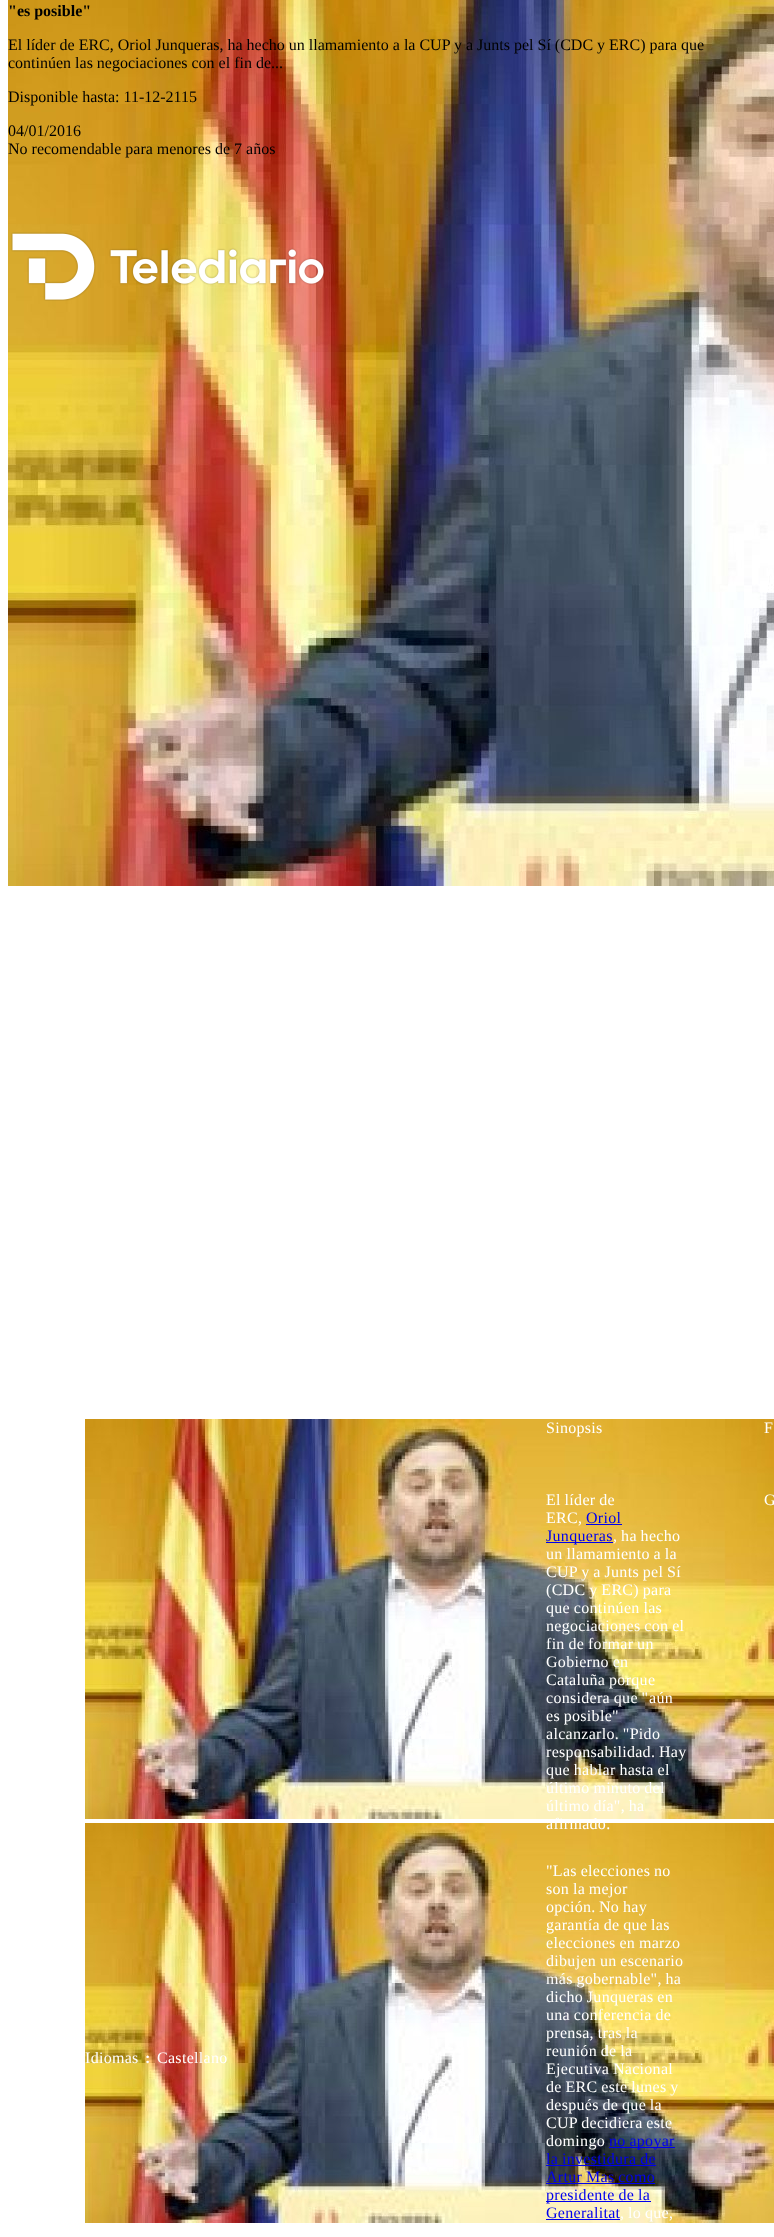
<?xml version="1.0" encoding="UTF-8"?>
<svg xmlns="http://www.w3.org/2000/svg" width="774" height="2237">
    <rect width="100%" height="100%" fill="#FFFFFF"/>
    <image x="8" y="0" width="766" height="886" href="img_01.png"/>
    <text x="8" y="16" font-family="Liberation Serif" font-size="16" font-weight="700" fill="#000000">"es posible"</text>
    <text font-family="Liberation Serif" font-size="16" fill="#000000">
        <tspan x="8" y="50">El líder de ERC, Oriol Junqueras, ha hecho un llamamiento a la CUP y a Junts pel Sí (CDC y ERC) para que</tspan>
        <tspan x="8" y="68">continúen las negociaciones con el fin de...</tspan>
    </text>
    <text x="8" y="102" font-family="Liberation Serif" font-size="16" fill="#000000">Disponible hasta: 11-12-2115</text>
    <text font-family="Liberation Serif" font-size="16" fill="#000000">
        <tspan x="8" y="136">04/01/2016</tspan>
        <tspan x="8" y="154">No recomendable para menores de 7 años</tspan>
    </text>
    <image x="11" y="232" width="314" height="69" href="img_02.png"/>
    <image x="85" y="1419" width="689" height="400" href="img_03.png"/>
    <image x="85" y="1823" width="689" height="400" href="img_03.png"/>
    <text x="546" y="1433" font-family="Liberation Serif" font-size="16" letter-spacing="0.3" fill="#FFFFFF">Sinopsis</text>
    <text font-family="Liberation Serif" font-size="16" letter-spacing="0.3" fill="#FFFFFF">
        <tspan x="546" y="1505" word-spacing="-0.5">El líder de</tspan>
        <tspan x="546" y="1523">ERC,</tspan>
    </text>
    <text x="586" y="1523" font-family="Liberation Serif" font-size="16" letter-spacing="0.3" fill="#0000EE">Oriol</text>
    <rect x="586" y="1524" width="36" height="1" fill="#0000EE"/>
    <rect x="546" y="1542" width="67" height="1" fill="#0000EE"/>
    <text x="546" y="1541" font-family="Liberation Serif" font-size="16" letter-spacing="0.3" fill="#0000EE">Junqueras</text>
    <text x="613" y="1541" word-spacing="-0.5" font-family="Liberation Serif" font-size="16" letter-spacing="0.3" fill="#FFFFFF">, ha hecho</text>
    <text font-family="Liberation Serif" font-size="16" letter-spacing="0.3" fill="#FFFFFF">
        <tspan x="546" y="1559" word-spacing="-0.5">un llamamiento a la</tspan>
        <tspan x="546" y="1577" word-spacing="-0.5">CUP y a Junts pel Sí</tspan>
        <tspan x="546" y="1595" word-spacing="-0.5">(CDC y ERC) para</tspan>
        <tspan x="546" y="1613" word-spacing="-0.5">que continúen las</tspan>
        <tspan x="546" y="1631" word-spacing="-0.5">negociaciones con el</tspan>
        <tspan x="546" y="1649" word-spacing="-0.5">fin de formar un</tspan>
        <tspan x="546" y="1667" word-spacing="-0.5">Gobierno en</tspan>
        <tspan x="546" y="1685" word-spacing="-0.5">Cataluña porque</tspan>
        <tspan x="546" y="1703" word-spacing="-0.5">considera que "</tspan>
    </text>
    <text x="649" y="1703" font-family="Liberation Serif" font-size="16" letter-spacing="0.3" fill="#FFFFFF">aún</text>
    <text x="546" y="1721" word-spacing="-0.5" font-family="Liberation Serif" font-size="16" letter-spacing="0.3" fill="#FFFFFF">es posible</text>
    <text x="612" y="1721" font-family="Liberation Serif" font-size="16" letter-spacing="0.3" fill="#FFFFFF">"</text>
    <text font-family="Liberation Serif" font-size="16" letter-spacing="0.3" fill="#FFFFFF">
        <tspan x="546" y="1739" word-spacing="-0.5">alcanzarlo. "Pido</tspan>
        <tspan x="546" y="1757">responsabilidad.</tspan>
    </text>
    <text x="659" y="1757" font-family="Liberation Serif" font-size="16" letter-spacing="0.3" fill="#FFFFFF">Hay</text>
    <text font-family="Liberation Serif" font-size="16" letter-spacing="0.3" fill="#FFFFFF">
        <tspan x="546" y="1775" word-spacing="-0.5">que hablar hasta el</tspan>
        <tspan x="546" y="1793" word-spacing="-0.5">último minuto del</tspan>
        <tspan x="546" y="1811" word-spacing="-0.5">último día", ha</tspan>
        <tspan x="546" y="1829">afirmado.</tspan>
    </text>
    <text font-family="Liberation Serif" font-size="16" letter-spacing="0.3" fill="#FFFFFF">
        <tspan x="546" y="1876" word-spacing="-0.5">"Las elecciones no</tspan>
        <tspan x="546" y="1894" word-spacing="-0.5">son la mejor</tspan>
        <tspan x="546" y="1912">opción.</tspan>
    </text>
    <text x="599" y="1912" word-spacing="-0.5" font-family="Liberation Serif" font-size="16" letter-spacing="0.3" fill="#FFFFFF">No hay</text>
    <text font-family="Liberation Serif" font-size="16" letter-spacing="0.3" fill="#FFFFFF">
        <tspan x="546" y="1930" word-spacing="-0.5">garantía de que las</tspan>
        <tspan x="546" y="1948" word-spacing="-0.5">elecciones en marzo</tspan>
        <tspan x="546" y="1966" word-spacing="-0.5">dibujen un escenario</tspan>
        <tspan x="546" y="1984" word-spacing="-0.5">más gobernable", ha</tspan>
        <tspan x="546" y="2002" word-spacing="-0.5">dicho Junqueras en</tspan>
        <tspan x="546" y="2020" word-spacing="-0.5">una conferencia de</tspan>
        <tspan x="546" y="2038" word-spacing="-0.5">prensa, tras la</tspan>
        <tspan x="546" y="2056" word-spacing="-0.5">reunión de la</tspan>
        <tspan x="546" y="2074" word-spacing="-0.5">Ejecutiva Nacional</tspan>
        <tspan x="546" y="2092" word-spacing="-0.5">de ERC este lunes y</tspan>
        <tspan x="546" y="2110" word-spacing="-0.5">después de que la</tspan>
        <tspan x="546" y="2128" word-spacing="-0.5">CUP decidiera este</tspan>
        <tspan x="546" y="2146">domingo</tspan>
    </text>
    <rect x="609" y="2147" width="66" height="1" fill="#0000EE"/>
    <text x="609" y="2146" word-spacing="-0.5" font-family="Liberation Serif" font-size="16" letter-spacing="0.3" fill="#0000EE">no apoyar</text>
    <text x="546" y="2164" word-spacing="-0.5" font-family="Liberation Serif" font-size="16" letter-spacing="0.3" fill="#0000EE">la investidura de</text>
    <rect x="546" y="2165" width="110" height="1" fill="#0000EE"/>
    <text x="546" y="2182" word-spacing="-0.5" font-family="Liberation Serif" font-size="16" letter-spacing="0.3" fill="#0000EE">Artur Mas como</text>
    <rect x="546" y="2183" width="109" height="1" fill="#0000EE"/>
    <rect x="546" y="2201" width="105" height="1" fill="#0000EE"/>
    <text font-family="Liberation Serif" font-size="16" letter-spacing="0.3" fill="#0000EE">
        <tspan x="546" y="2200" word-spacing="-0.5">presidente de la</tspan>
        <tspan x="546" y="2218">Generalitat</tspan>
    </text>
    <rect x="546" y="2219" width="74" height="1" fill="#0000EE"/>
    <text x="620" y="2218" word-spacing="-0.5" font-family="Liberation Serif" font-size="16" letter-spacing="0.3" fill="#FFFFFF">, lo que,</text>
    <text x="764" y="1433" word-spacing="-0.5" font-family="Liberation Serif" font-size="16" letter-spacing="0.3" fill="#FFFFFF">F</text>
    <text x="764" y="1505" font-family="Liberation Serif" font-size="16" letter-spacing="0.3" fill="#FFFFFF">G</text>
    <text x="85" y="2063" font-family="Liberation Serif" font-size="16" letter-spacing="0.3" fill="#FFFFFF">Idiomas</text>
    <text x="145" y="2063" font-family="Liberation Serif" font-size="16" font-weight="700" letter-spacing="0.3" fill="#FFFFFF">:</text>
    <text x="157" y="2063" font-family="Liberation Serif" font-size="16" letter-spacing="0.3" fill="#FFFFFF">Castellano</text>
</svg>
